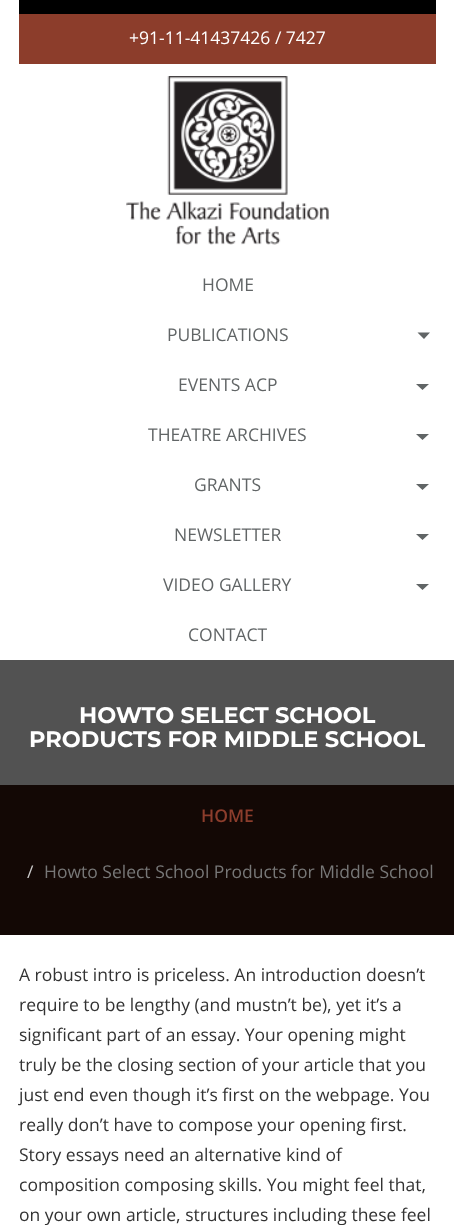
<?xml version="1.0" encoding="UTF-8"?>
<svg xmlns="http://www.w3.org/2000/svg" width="454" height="1225">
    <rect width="100%" height="100%" fill="#FFFFFF"/>
    <rect x="19" y="0" width="417" height="14" fill="#000000"/>
    <rect x="19" y="14" width="417" height="50" fill="#8C3D2B"/>
    <text x="129" y="44" font-family="Open Sans" font-size="17.5" fill="#FFFFFF">+91-11-41437426 / 7427</text>
    <image x="126" y="76" width="203" height="169" href="img_01.png"/>
    <text x="202" y="291" font-family="Open Sans" font-size="17.5" fill="#616566">HOME</text>
    <text x="167" y="341" font-family="Open Sans" font-size="17.5" fill="#616566">PUBLICATIONS</text>
    <path d="M 417.5 332.5 H 430 L 424 339 Z M 416 384 H 429 L 422.5 390 Z" fill="#616566"/>
    <text x="178" y="391" font-family="Open Sans" font-size="17.5" fill="#616566">EVENTS ACP</text>
    <text x="148" y="441" font-family="Open Sans" font-size="17.5" fill="#616566">THEATRE ARCHIVES</text>
    <path d="M 416 434 H 429 L 422.5 440 Z M 416 484 H 429 L 422.5 490 Z" fill="#616566"/>
    <text x="194" y="491" font-family="Open Sans" font-size="17.5" fill="#616566">GRANTS</text>
    <text x="174" y="541" font-family="Open Sans" font-size="17.5" fill="#616566">NEWSLETTER</text>
    <path d="M 416 534 H 429 L 422.5 540 Z M 416 584 H 429 L 422.5 590 Z" fill="#616566"/>
    <text x="163" y="591" font-family="Open Sans" font-size="17.5" fill="#616566">VIDEO GALLERY</text>
    <text x="188" y="641" font-family="Open Sans" font-size="17.5" fill="#616566">CONTACT</text>
    <rect x="0" y="660" width="454" height="125" fill="#525252"/>
    <text x="79" y="723" font-family="Montserrat" font-size="22.5" font-weight="700" fill="#FFFFFF">HOWTO SELECT SCHOOL</text>
    <text x="29" y="747" font-family="Montserrat" font-size="22.5" font-weight="700" fill="#FFFFFF">PRODUCTS FOR MIDDLE SCHOOL</text>
    <rect x="0" y="785" width="454" height="150" fill="#130805"/>
    <text x="201" y="822" font-family="Open Sans" font-size="17.5" font-weight="600" fill="#8C3D2C">HOME</text>
    <text x="27" y="878" font-family="Open Sans" font-size="17.5" fill="#CCCCCC">/</text>
    <text x="44" y="878" font-family="Open Sans" font-size="17.5" fill="#777777">Howto Select School Products for Middle School</text>
    <text font-family="Open Sans" font-size="17.5" fill="#333333">
        <tspan x="19" y="981">A robust intro is priceless. An introduction doesn’t</tspan>
        <tspan x="19" y="1011">require to be lengthy (and mustn’t be), yet it’s a</tspan>
        <tspan x="19" y="1041">significant part of an essay. Your opening might</tspan>
        <tspan x="19" y="1071">truly be the closing section of your article that you</tspan>
        <tspan x="19" y="1101">just end even though it’s first on the webpage. You</tspan>
        <tspan x="19" y="1131">really don’t have to compose your opening first.</tspan>
        <tspan x="19" y="1161">Story essays need an alternative kind of</tspan>
        <tspan x="19" y="1191">composition composing skills. You might feel that,</tspan>
        <tspan x="19" y="1221">on your own article, structures including these feel</tspan>
    </text>
</svg>
